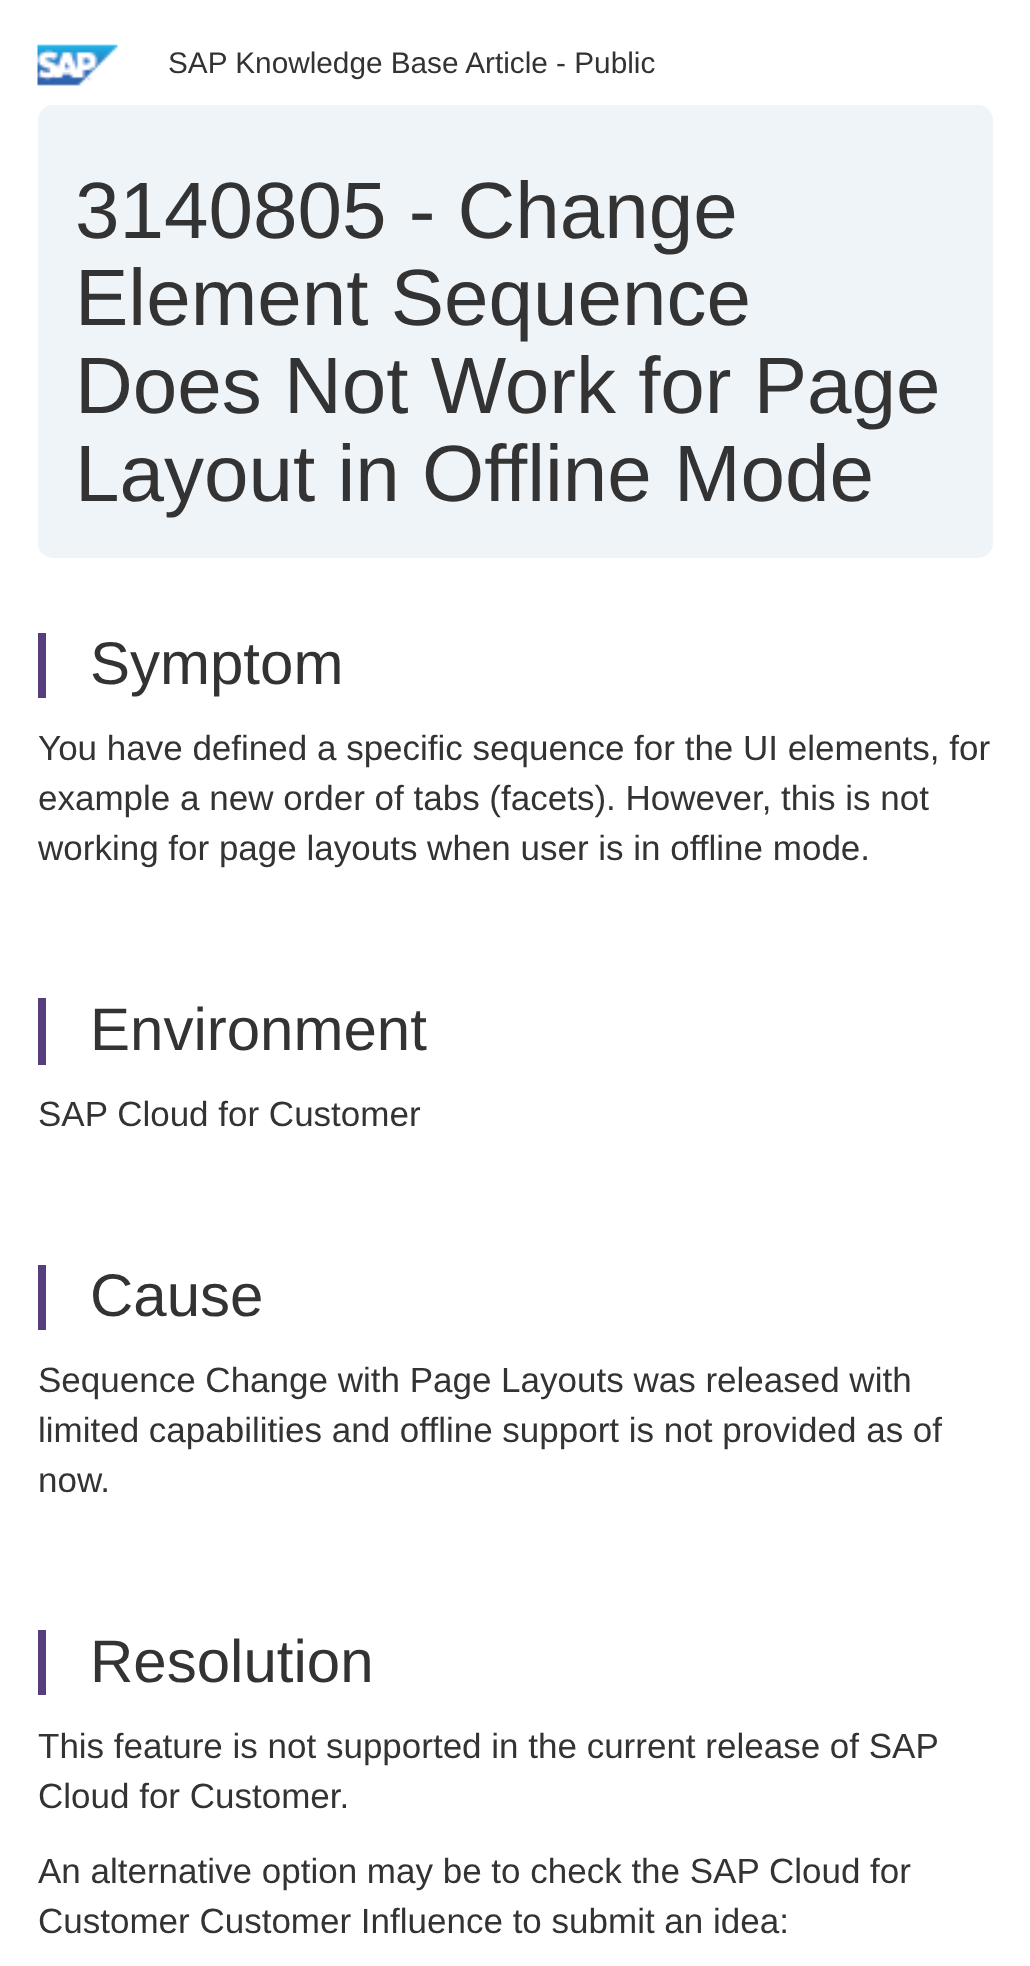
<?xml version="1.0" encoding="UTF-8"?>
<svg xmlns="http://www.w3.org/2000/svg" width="1030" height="1966">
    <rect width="100%" height="100%" fill="#FFFFFF"/>
    <image x="37" y="44" width="81" height="42" href="img_01.png"/>
    <text x="168" y="73" font-family="Liberation Sans" font-size="29.75" fill="#333333">SAP Knowledge Base Article - Public</text>
    <rect x="38" y="105" width="955" height="453" rx="15" fill="#EFF4F9"/>
    <text font-family="Liberation Sans" font-size="80" fill="#333333">
        <tspan x="75" y="238">3140805 - Change</tspan>
        <tspan x="75" y="325">Element Sequence</tspan>
        <tspan x="75" y="413">Does Not Work for Page</tspan>
        <tspan x="75" y="501">Layout in Offline Mode</tspan>
    </text>
    <rect x="38" y="633" width="8" height="65" fill="#563D7C"/>
    <text x="90" y="684" font-family="Liberation Sans" font-size="60" fill="#333333">Symptom</text>
    <text font-family="Liberation Sans" font-size="35" fill="#333333">
        <tspan x="38" y="760">You have defined a specific sequence for the UI elements, for</tspan>
        <tspan x="38" y="810">example a new order of tabs (facets). However, this is not</tspan>
        <tspan x="38" y="860">working for page layouts when user is in offline mode.</tspan>
    </text>
    <rect x="38" y="998" width="8" height="67" fill="#563D7C"/>
    <text x="90" y="1050" font-family="Liberation Sans" font-size="60" fill="#333333">Environment</text>
    <text x="38" y="1126" font-family="Liberation Sans" font-size="35" fill="#333333">SAP Cloud for Customer</text>
    <rect x="38" y="1265" width="8" height="65" fill="#563D7C"/>
    <text x="90" y="1316" font-family="Liberation Sans" font-size="60" fill="#333333">Cause</text>
    <text font-family="Liberation Sans" font-size="35" fill="#333333">
        <tspan x="38" y="1392">Sequence Change with Page Layouts was released with</tspan>
        <tspan x="38" y="1442">limited capabilities and offline support is not provided as of</tspan>
        <tspan x="38" y="1492">now.</tspan>
    </text>
    <rect x="38" y="1630" width="8" height="65" fill="#563D7C"/>
    <text x="90" y="1682" font-family="Liberation Sans" font-size="60" fill="#333333">Resolution</text>
    <text font-family="Liberation Sans" font-size="35" fill="#333333">
        <tspan x="38" y="1758">This feature is not supported in the current release of SAP</tspan>
        <tspan x="38" y="1808">Cloud for Customer.</tspan>
    </text>
    <text font-family="Liberation Sans" font-size="35" fill="#333333">
        <tspan x="38" y="1883">An alternative option may be to check the SAP Cloud for</tspan>
        <tspan x="38" y="1933">Customer Customer Influence to submit an idea:</tspan>
    </text>
</svg>
